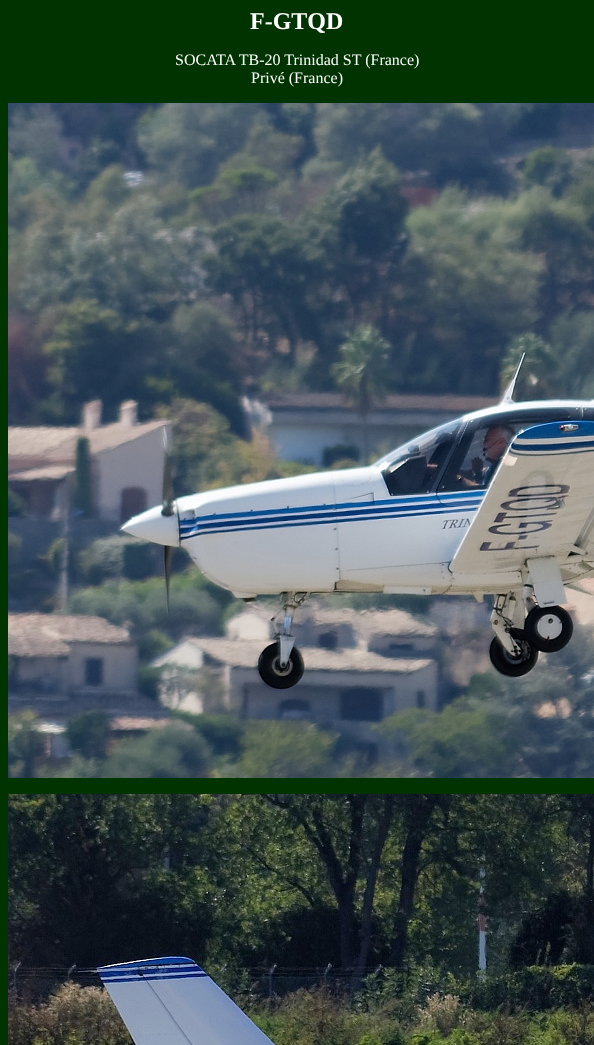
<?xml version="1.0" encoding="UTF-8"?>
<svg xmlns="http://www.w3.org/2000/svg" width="594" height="1045">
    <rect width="100%" height="100%" fill="#003300"/>
    <text x="250" y="29" font-family="Liberation Serif" font-size="24" font-weight="700" fill="#FFFFFF">F-GTQD</text>
    <text x="175" y="65" font-family="Liberation Serif" font-size="16" fill="#FFFFFF">SOCATA TB-20 Trinidad ST (France)</text>
    <text x="251" y="83" font-family="Liberation Serif" font-size="16" fill="#FFFFFF">Privé (France)</text>
    <image x="8" y="103" width="586" height="675" href="img_01.png"/>
    <image x="8" y="794" width="586" height="251" href="img_02.png"/>
</svg>
